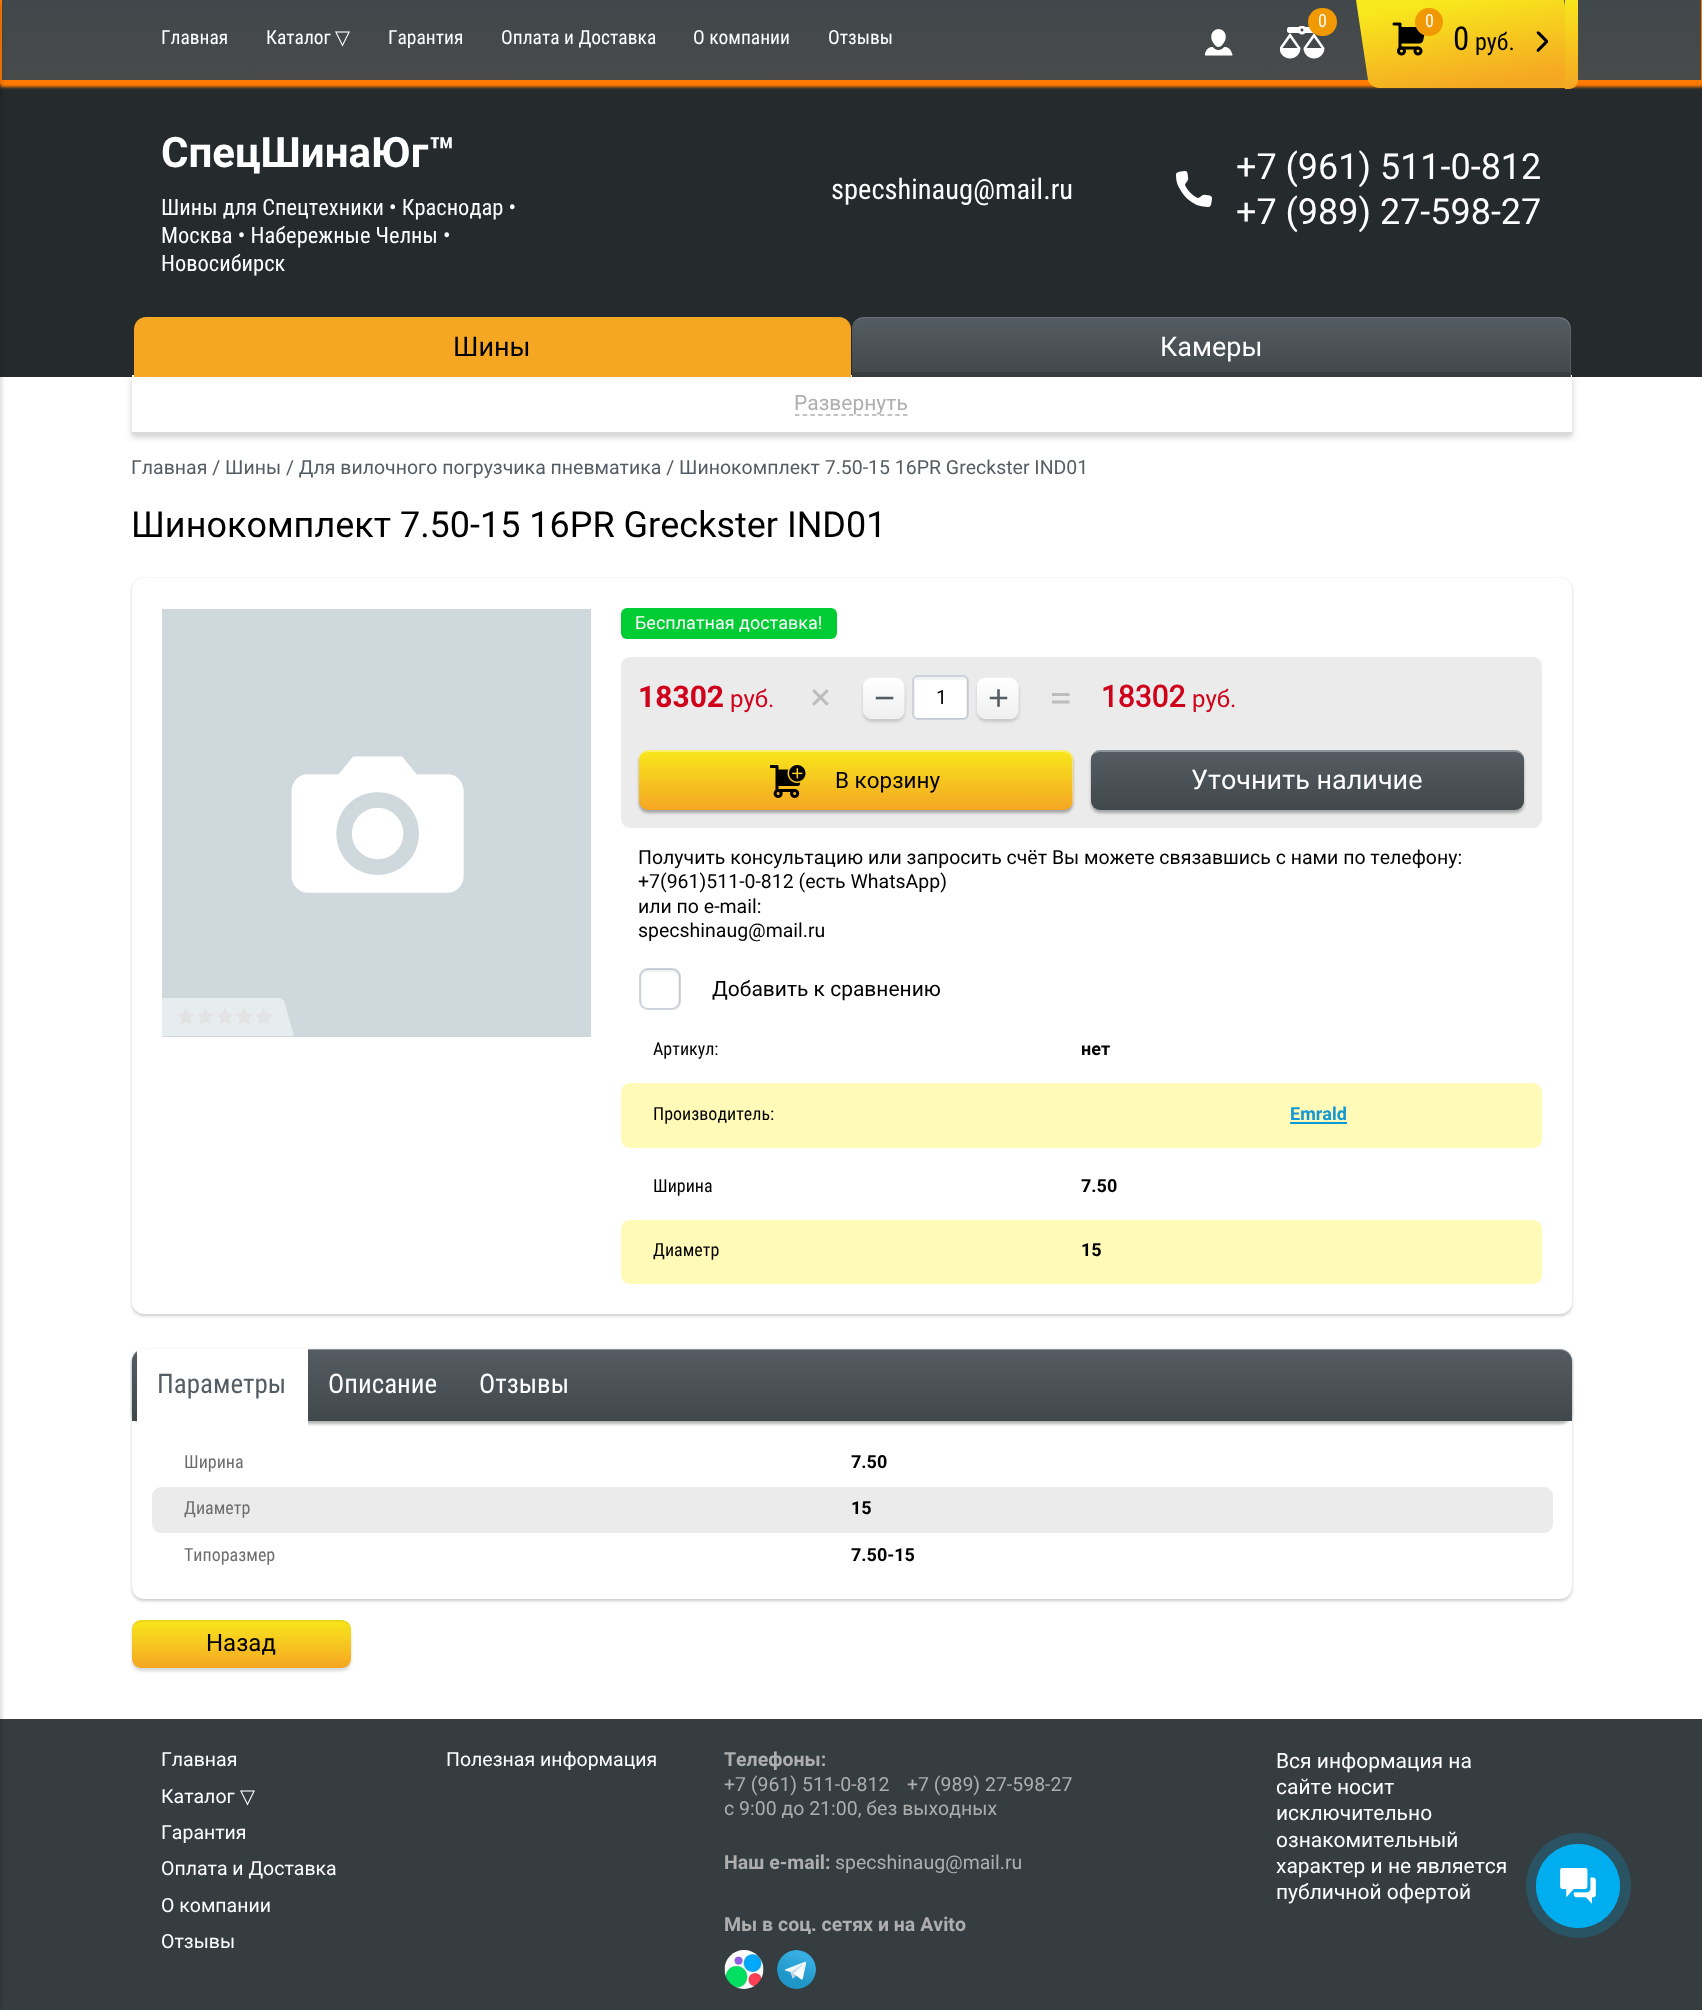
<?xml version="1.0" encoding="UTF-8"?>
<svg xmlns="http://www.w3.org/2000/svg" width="1702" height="2010">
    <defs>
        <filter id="blur1" x="-50%" y="-200%" width="200%" height="500%"><feGaussianBlur stdDeviation="1.5"/></filter>
        <linearGradient id="g1" gradientUnits="userSpaceOnUse" x1="851" y1="84" x2="851" y2="0"><stop offset="0" stop-color="#4A4A4A"/><stop offset="1" stop-color="#40484B"/></linearGradient>
        <clipPath id="clip1"><rect x="0" y="0" width="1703" height="84"/></clipPath>
        <filter id="blur2" x="-50%" y="-200%" width="200%" height="500%"><feGaussianBlur stdDeviation="3"/></filter>
        <linearGradient id="g2" gradientUnits="userSpaceOnUse" x1="1460" y1="0" x2="1474" y2="89"><stop offset="0" stop-color="#F8E71C"/><stop offset="1" stop-color="#F5A623"/></linearGradient>
        <linearGradient id="g3" gradientUnits="userSpaceOnUse" x1="1571" y1="0" x2="1571" y2="89"><stop offset="0" stop-color="#F8E71C"/><stop offset="1" stop-color="#F5A623"/></linearGradient>
        <linearGradient id="g4" gradientUnits="userSpaceOnUse" x1="1211" y1="316" x2="1211" y2="377"><stop offset="0" stop-color="#555D64"/><stop offset="0.98" stop-color="#40484B"/></linearGradient>
        <clipPath id="clip2"><rect x="162" y="608" width="429" height="429"/></clipPath>
        <linearGradient id="g5" gradientUnits="userSpaceOnUse" x1="884" y1="677" x2="884" y2="719"><stop offset="0" stop-color="#EFEFEF" stop-opacity="0"/><stop offset="1" stop-color="#EFEFEF"/></linearGradient>
        <linearGradient id="g6" gradientUnits="userSpaceOnUse" x1="998" y1="677" x2="998" y2="719"><stop offset="0" stop-color="#EFEFEF" stop-opacity="0"/><stop offset="1" stop-color="#EFEFEF"/></linearGradient>
        <linearGradient id="g7" gradientUnits="userSpaceOnUse" x1="856" y1="750" x2="856" y2="810"><stop offset="0" stop-color="#F8E71C"/><stop offset="1" stop-color="#F5A623"/></linearGradient>
        <linearGradient id="g8" gradientUnits="userSpaceOnUse" x1="1307" y1="750" x2="1307" y2="810"><stop offset="0" stop-color="#555D64"/><stop offset="1" stop-color="#40484B"/></linearGradient>
        <linearGradient id="g9" gradientUnits="userSpaceOnUse" x1="852" y1="1348" x2="852" y2="1421"><stop offset="0" stop-color="#555D64"/><stop offset="1" stop-color="#40484B"/></linearGradient>
        <linearGradient id="g10" gradientUnits="userSpaceOnUse" x1="242" y1="1620" x2="242" y2="1668"><stop offset="0" stop-color="#F8E71C"/><stop offset="1" stop-color="#F5A623"/></linearGradient>
    </defs>
    <rect width="100%" height="100%" fill="#FFFFFF"/>
    <rect x="0" y="84" width="1702" height="293" fill="#252A2D"/>
    <rect x="0" y="3" width="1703" height="84" fill="#FF7A00" filter="url(#blur1)"/>
    <rect x="2" y="0" width="1699" height="80" fill="url(#g1)"/>
    <g clip-path="url(#clip1)">
        <path d="M -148 -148 H 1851 V 232 H -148 Z M 2 -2 H 1701 V 80 H 2 Z" fill="#FF7A00" fill-rule="evenodd"/>
    </g>
    <rect x="0" y="1719" width="1702" height="291" fill="#353D41"/>
    <rect x="-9" y="3" width="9" height="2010" fill="#000000" fill-opacity="0.25" filter="url(#blur2)"/>
    <text x="161" y="44" font-family="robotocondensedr" font-size="19.5" fill="#FFFFFF">Главная</text>
    <text x="266" y="44" font-family="robotocondensedr" font-size="19.5" fill="#FFFFFF">Каталог</text>
    <text x="335" y="44" font-family="DejaVu Sans" font-size="19.5" fill="#FFFFFF">▽</text>
    <text x="388" y="44" font-family="robotocondensedr" font-size="19.5" fill="#FFFFFF">Гарантия</text>
    <text x="501" y="44" font-family="robotocondensedr" font-size="19.5" fill="#FFFFFF">Оплата и Доставка</text>
    <text x="693" y="44" font-family="robotocondensedr" font-size="19.5" fill="#FFFFFF">О компании</text>
    <text x="828" y="44" font-family="robotocondensedr" font-size="19.5" fill="#FFFFFF">Отзывы</text>
    <image x="1205" y="29" width="28" height="27" href="img_01.png"/>
    <image x="1280" y="26" width="45" height="33" href="img_02.png"/>
    <rect x="1308" y="8" width="29" height="28" rx="14" fill="#F19903"/>
    <text x="1318" y="27" font-family="robotocondensedr" font-size="18" fill="#FFFFFF">0</text>
    <path d="M 1356 0 H 1564 L 1577 80 C 1578 84 1574 88 1569 88 H 1379 C 1374 88 1369 84 1368 80 Z" fill="url(#g2)"/>
    <image x="1392" y="22" width="33" height="34" href="img_03.png"/>
    <circle cx="1429" cy="22" r="14" fill="#F19903"/>
    <text x="1425" y="27" font-family="robotocondensedr" font-size="18" fill="#FFFFFF">0</text>
    <text x="1453" y="50" font-family="robotocondensedr" font-size="33" fill="#000000">0</text>
    <text x="1475" y="50" font-family="robotocondensedr" font-size="24" fill="#000000">руб.</text>
    <image x="1536" y="31" width="12" height="21" href="img_04.png"/>
    <path d="M 1565 0 H 1578 V 80 C 1578 85 1574 89 1569 89 H 1565 Z" fill="url(#g3)"/>
    <text x="161" y="167" font-family="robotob" font-size="42" font-weight="700" fill="#FFFFFF">СпецШинаЮг™</text>
    <text font-family="robotocondensedr" font-size="22.5" fill="#FFFFFF">
        <tspan x="161" y="215">Шины для Спецтехники • Краснодар •</tspan>
        <tspan x="161" y="243">Москва • Набережные Челны •</tspan>
        <tspan x="161" y="271">Новосибирск</tspan>
    </text>
    <text x="831" y="199" font-family="robotocondensedr" font-size="28.5" fill="#FFFFFF">specshinaug@mail.ru</text>
    <image x="1176" y="171" width="36" height="36" href="img_05.png"/>
    <text font-family="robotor" font-size="36" fill="#FFFFFF">
        <tspan x="1236" y="179">+7 (961) 511-0-812</tspan>
        <tspan x="1236" y="224">+7 (989) 27-598-27</tspan>
    </text>
    <rect x="132" y="378" width="1440" height="59" fill="#000000" fill-opacity="0.2" filter="url(#blur2)"/>
    <rect x="132" y="375" width="1440" height="57" fill="#FFFFFF"/>
    <path d="M 146 317 H 839 C 845.5 317 851 322.5 851 329 V 377 H 134 V 329 C 134 322.5 139.5 317 146 317 Z" fill="#F5A623"/>
    <text x="453" y="356" font-family="robotor" font-size="27" fill="#000000">Шины</text>
    <path d="M 864 317 H 1559 C 1565.5 317 1571 322.5 1571 329 V 377 H 852 V 329 C 852 322.5 857.5 317 864 317 Z" fill="url(#g4)"/>
    <path d="M 852 372 V 377 H 1571 V 329 L 1570 324 V 372 Z" fill="#000000" fill-opacity="0.15"/>
    <path d="M 864 318 H 1558 C 1565 318 1570 323 1570 330 V 377 H 1571 V 329 C 1571 322 1566 317 1559 317 H 864 C 857 317 852 322 852 329 V 330 C 852 323 857 318 864 318 Z" fill="#FFFFFF" fill-opacity="0.15"/>
    <text x="1160" y="356" font-family="robotor" font-size="27" fill="#FFFFFF">Камеры</text>
    <rect x="132" y="432" width="1440" height="2" fill="#D8DADE"/>
    <path d="M 795 415 H 907.5" fill="none" stroke="#AEAEAE" stroke-width="1.5" stroke-dasharray="4.5 3.21"/>
    <text x="794" y="410" font-family="robotor" font-size="21" fill="#AEAEAE">Развернуть</text>
    <text x="131" y="474" font-family="robotor" font-size="19.5" fill="#555D64">Главная / Шины / Для вилочного погрузчика пневматика / Шинокомплект 7.50-15 16PR Greckster IND01</text>
    <text x="131" y="537" font-family="robotor" font-size="36" fill="#000000">Шинокомплект 7.50-15 16PR Greckster IND01</text>
    <rect x="132" y="579" width="1440" height="737" rx="12" fill="#000000" fill-opacity="0.2" filter="url(#blur1)"/>
    <rect x="132" y="578" width="1440" height="736" rx="12" fill="#FFFFFF"/>
    <image x="162" y="609" width="429" height="428" href="img_06.png"/>
    <g clip-path="url(#clip2)">
        <path d="M 147 998 H 278 C 281 998 285 1000 285 1004 L 294 1036 H 163 C 160 1036 156 1034 156 1030 Z" fill="#E7ECEE"/>
    </g>
    <image x="177" y="1008" width="95" height="17" href="img_07.png"/>
    <rect x="621" y="608" width="216" height="31" rx="6" fill="#00CC33"/>
    <text x="635" y="629" font-family="robotor" font-size="18" fill="#FFFFFF">Бесплатная доставка!</text>
    <rect x="621" y="657" width="921" height="171" rx="9" fill="#EBEBEB"/>
    <text x="638" y="707" font-family="robotob" font-size="30" font-weight="700" fill="#D0021B">18302</text>
    <text x="730" y="707" font-family="robotor" font-size="24" fill="#D0021B">руб.</text>
    <image x="812" y="689" width="17" height="17" href="img_08.png"/>
    <rect x="863" y="680" width="42" height="42" rx="9" fill="#000000" fill-opacity="0.15" filter="url(#blur1)"/>
    <rect x="863" y="677" width="42" height="42" rx="9" fill="#FFFFFF"/>
    <rect x="863" y="677" width="42" height="42" rx="9" fill="url(#g5)"/>
    <path d="M 872 678 H 896 C 900 678 904 682 904 687 V 711 C 904 713 903 715 902 717 C 904 715 905 713 905 710 V 686 C 905 681 901 677 896 677 H 872 C 869 677 866 679 864 682 C 866 679 869 678 872 678 Z" fill="#000000" fill-opacity="0.06"/>
    <text x="874" y="710" font-family="Liberation Sans" font-size="36" fill="#555D64">−</text>
    <rect x="912" y="675" width="57" height="45" rx="6" fill="#FFFFFF"/>
    <path d="M 919 677 C 916 677 914 679 914 682 V 714 C 914 717 916 719 919 719 H 963 C 966 719 968 717 968 714 V 682 C 968 679 966 677 963 677 Z M 918 680 C 916 680 915 681 915 682 V 716 C 915 717 916 718 918 718 H 963 C 965 718 966 717 966 716 V 682 C 966 681 965 680 963 680 Z" fill="#F2F2F2" fill-rule="evenodd"/>
    <rect x="913" y="676" width="55" height="43" rx="5" fill="none" stroke="#05204F" stroke-opacity="0.2" stroke-width="2"/>
    <text x="936" y="704" font-family="robotor" font-size="19.5" fill="#000000">1</text>
    <rect x="977" y="680" width="42" height="42" rx="9" fill="#000000" fill-opacity="0.15" filter="url(#blur1)"/>
    <rect x="977" y="677" width="42" height="42" rx="9" fill="#FFFFFF"/>
    <rect x="977" y="677" width="42" height="42" rx="9" fill="url(#g6)"/>
    <path d="M 986 678 H 1010 C 1014 678 1018 682 1018 687 V 711 C 1018 713 1017 715 1016 717 C 1018 715 1019 713 1019 710 V 686 C 1019 681 1015 677 1010 677 H 986 C 983 677 980 679 978 682 C 980 679 983 678 986 678 Z" fill="#000000" fill-opacity="0.06"/>
    <text x="988" y="710" font-family="Liberation Sans" font-size="36" fill="#555D64">+</text>
    <image x="1052" y="693" width="18" height="11" href="img_09.png"/>
    <text x="1101" y="707" font-family="robotor" font-size="30" font-weight="700" fill="#D0021B">18302</text>
    <text x="1192" y="707" font-family="robotor" font-size="24" fill="#D0021B">руб.</text>
    <rect x="639" y="753" width="434" height="60" rx="9" fill="#000000" fill-opacity="0.3" filter="url(#blur1)"/>
    <rect x="639" y="750" width="434" height="60" rx="9" fill="url(#g7)"/>
    <path d="M 648 752 H 1064 C 1068 752 1072 756 1072 760 V 802 C 1072 804 1072 805 1071 807 C 1072 805 1073 803 1073 801 V 759 C 1073 754 1069 750 1064 750 H 648 C 643 750 639 754 639 759 V 760 C 639 756 643 752 648 752 Z" fill="#FFFFFF" fill-opacity="0.35"/>
    <image x="770" y="765" width="36" height="33" href="img_10.png"/>
    <text x="835" y="788" font-family="robotor" font-size="22.5" fill="#000000">В корзину</text>
    <rect x="1091" y="753" width="433" height="60" rx="9" fill="#000000" fill-opacity="0.3" filter="url(#blur1)"/>
    <rect x="1091" y="750" width="433" height="60" rx="9" fill="url(#g8)"/>
    <path d="M 1100 752 H 1515 C 1520 752 1524 756 1524 760 V 759 C 1524 754 1520 750 1515 750 H 1100 C 1096 750 1093 753 1091 756 C 1093 754 1097 752 1100 752 Z" fill="#FFFFFF" fill-opacity="0.35"/>
    <text x="1191" y="789" font-family="robotor" font-size="27" fill="#FFFFFF">Уточнить наличие</text>
    <text font-family="robotor" font-size="19.5" fill="#000000">
        <tspan x="638" y="864">Получить консультацию или запросить счёт Вы можете связавшись с нами по телефону:</tspan>
        <tspan x="638" y="888">+7(961)511-0-812 (есть WhatsApp)</tspan>
        <tspan x="638" y="913">или по e-mail:</tspan>
        <tspan x="638" y="937">specshinaug@mail.ru</tspan>
    </text>
    <path d="M 648 972 H 672 C 675 972 678 975 678 978 V 1002 C 678 1005 675 1008 672 1008 C 676.5 1008 680 1004.5 680 1000 V 977 C 680 972.5 676.5 969 672 969 H 649 C 644.5 969 641 972.5 641 977 V 1000 C 641 1002.5 642 1005 644 1006 C 643 1005 642 1003.5 642 1002 V 978 C 642 975 645 972 648 972 Z" fill="#F2F2F2"/>
    <rect x="640" y="969" width="40" height="40" rx="8" fill="none" stroke="#05204F" stroke-opacity="0.2" stroke-width="2"/>
    <text x="712" y="996" font-family="robotor" font-size="21" fill="#000000">Добавить к сравнению</text>
    <text x="653" y="1055" font-family="robotocondensedr" font-size="18" fill="#000000">Артикул:</text>
    <text x="1081" y="1055" font-family="robotob" font-size="18" font-weight="700" fill="#000000">нет</text>
    <rect x="621" y="1083" width="921" height="65" rx="9" fill="#FFFAB8"/>
    <text x="653" y="1120" font-family="robotocondensedr" font-size="18" fill="#000000">Производитель:</text>
    <text x="1290" y="1120" font-family="robotob" font-size="18" font-weight="700" fill="#1298D5">Emrald</text>
    <rect x="1290" y="1122" width="57" height="2" fill="#1298D5"/>
    <text x="653" y="1192" font-family="robotocondensedr" font-size="18" fill="#000000">Ширина</text>
    <text x="1081" y="1192" font-family="robotob" font-size="18" font-weight="700" fill="#000000">7.50</text>
    <rect x="621" y="1220" width="921" height="64" rx="9" fill="#FFFAB8"/>
    <text x="653" y="1256" font-family="robotocondensedr" font-size="18" fill="#000000">Диаметр</text>
    <text x="1081" y="1256" font-family="robotob" font-size="18" font-weight="700" fill="#000000">15</text>
    <rect x="132" y="1350" width="1440" height="251" rx="12" fill="#000000" fill-opacity="0.2" filter="url(#blur1)"/>
    <path d="M 132 1421 H 1572 V 1587 C 1572 1593.5 1566.5 1599 1560 1599 H 144 C 137.5 1599 132 1593.5 132 1587 Z" fill="#FFFFFF"/>
    <rect x="132" y="1352" width="1440" height="72" rx="12" fill="#000000" fill-opacity="0.3" filter="url(#blur1)"/>
    <path d="M 144 1349 H 1560 C 1566.5 1349 1572 1354.5 1572 1361 V 1421 H 132 V 1361 C 132 1354.5 137.5 1349 144 1349 Z" fill="url(#g9)"/>
    <path d="M 144 1350 H 1560 C 1567 1350 1572 1355 1572 1362 C 1572 1355 1567 1349 1560 1349 H 144 C 137 1349 132 1355 132 1362 C 132 1355 137 1350 144 1350 Z" fill="#FFFFFF" fill-opacity="0.35"/>
    <rect x="137" y="1349" width="171" height="78" fill="#FFFFFF"/>
    <text x="157" y="1393" font-family="robotocondensedr" font-size="27" fill="#555D64">Параметры</text>
    <text x="328" y="1393" font-family="robotocondensedr" font-size="27" fill="#FFFFFF">Описание</text>
    <text x="479" y="1393" font-family="robotocondensedr" font-size="27" fill="#FFFFFF">Отзывы</text>
    <text x="184" y="1468" font-family="robotocondensedr" font-size="18" fill="#6E6E6E">Ширина</text>
    <text x="851" y="1468" font-family="robotob" font-size="18" font-weight="700" fill="#000000">7.50</text>
    <rect x="152" y="1487" width="1401" height="46" rx="9" fill="#EBEBEB"/>
    <text x="184" y="1514" font-family="robotocondensedr" font-size="18" fill="#6E6E6E">Диаметр</text>
    <text x="851" y="1514" font-family="robotob" font-size="18" font-weight="700" fill="#000000">15</text>
    <text x="184" y="1561" font-family="robotocondensedr" font-size="18" fill="#6E6E6E">Типоразмер</text>
    <text x="851" y="1561" font-family="robotob" font-size="18" font-weight="700" fill="#000000">7.50-15</text>
    <rect x="132" y="1623" width="219" height="48" rx="9" fill="#000000" fill-opacity="0.15" filter="url(#blur1)"/>
    <rect x="132" y="1620" width="219" height="48" rx="9" fill="url(#g10)"/>
    <path d="M 141 1622 H 342 C 347 1622 351 1626 351 1630 V 1629 C 351 1624 347 1620 342 1620 H 141 C 136 1620 132 1624 132 1629 V 1630 C 132 1626 136 1622 141 1622 Z" fill="#000000" fill-opacity="0.06"/>
    <text x="206" y="1651" font-family="robotor" font-size="24" fill="#000000">Назад</text>
    <text font-family="robotor" font-size="19.5" fill="#FFFFFF">
        <tspan x="161" y="1766">Главная</tspan>
        <tspan x="161" y="1803">Каталог</tspan>
    </text>
    <text x="240" y="1803" font-family="DejaVu Sans" font-size="19.5" fill="#FFFFFF">▽</text>
    <text font-family="robotor" font-size="19.5" fill="#FFFFFF">
        <tspan x="161" y="1839">Гарантия</tspan>
        <tspan x="161" y="1875">Оплата и Доставка</tspan>
        <tspan x="161" y="1912">О компании</tspan>
        <tspan x="161" y="1948">Отзывы</tspan>
    </text>
    <text x="446" y="1766" font-family="robotor" font-size="19.5" fill="#FFFFFF">Полезная информация</text>
    <text x="724" y="1766" font-family="robotob" font-size="19.5" font-weight="700" fill="#AEAEAE">Телефоны:</text>
    <text x="724" y="1791" font-family="robotor" font-size="19.5" fill="#AEAEAE">+7 (961) 511-0-812</text>
    <text x="907" y="1791" font-family="robotor" font-size="19.5" fill="#AEAEAE">+7 (989) 27-598-27</text>
    <text x="724" y="1815" font-family="robotor" font-size="19.5" fill="#AEAEAE">с 9:00 до 21:00, без выходных</text>
    <text x="724" y="1869" font-family="robotob" font-size="19.5" font-weight="700" fill="#AEAEAE">Наш e-mail:</text>
    <text x="835" y="1869" font-family="robotor" font-size="19.5" fill="#AEAEAE">specshinaug@mail.ru</text>
    <text x="724" y="1931" font-family="robotob" font-size="19.5" font-weight="700" fill="#AEAEAE">Мы в соц. сетях и на Avito</text>
    <image x="724" y="1950" width="40" height="39" href="img_11.png"/>
    <image x="777" y="1950" width="39" height="39" href="img_12.png"/>
    <text font-family="robotor" font-size="21" fill="#FFFFFF">
        <tspan x="1276" y="1768">Вся информация на</tspan>
        <tspan x="1276" y="1794">сайте носит</tspan>
        <tspan x="1276" y="1820">исключительно</tspan>
        <tspan x="1276" y="1847">ознакомительный</tspan>
        <tspan x="1276" y="1873">характер и не является</tspan>
        <tspan x="1276" y="1899">публичной офертой</tspan>
    </text>
    <circle cx="1578.5" cy="1885.5" r="52.5" fill="#2A5464"/>
    <circle cx="1578" cy="1886" r="41.5" fill="none" stroke="#00AEEF"/>
    <circle cx="1578" cy="1886" r="42" fill="#00AEEF"/>
    <image x="1560" y="1868" width="36" height="36" href="img_13.png"/>
</svg>
